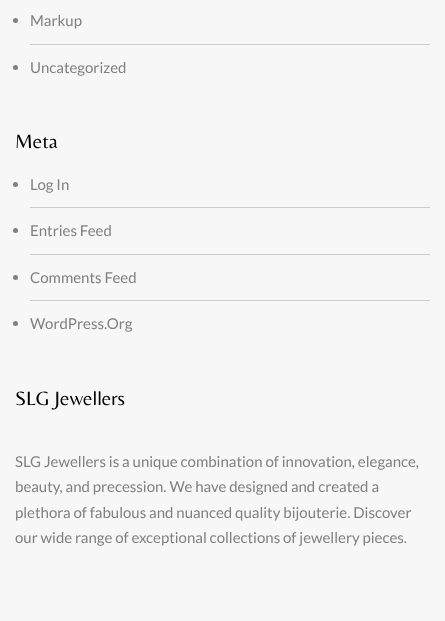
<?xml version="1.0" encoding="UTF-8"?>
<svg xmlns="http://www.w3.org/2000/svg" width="445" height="621">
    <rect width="100%" height="100%" fill="#F7F7F7"/>
    <circle cx="15.5" cy="20.5" r="2.5" fill="#808080"/>
    <text x="30" y="26" font-family="Lato" font-size="15" fill="#808080">Markup</text>
    <rect x="30" y="44" width="400" height="1" fill="#CCCCCC"/>
    <circle cx="15.5" cy="67.5" r="2.5" fill="#808080"/>
    <text x="30" y="73" font-family="Lato" font-size="15" fill="#808080">Uncategorized</text>
    <text x="15" y="148" font-family="Belleza" font-size="20" fill="#000000">Meta</text>
    <circle cx="15.5" cy="184.5" r="2.5" fill="#808080"/>
    <text x="30" y="190" font-family="Lato" font-size="15" fill="#808080">Log In</text>
    <rect x="30" y="207" width="400" height="1" fill="#CCCCCC"/>
    <circle cx="15.5" cy="230.5" r="2.5" fill="#808080"/>
    <text x="30" y="236" font-family="Lato" font-size="15" fill="#808080">Entries Feed</text>
    <rect x="30" y="254" width="400" height="1" fill="#CCCCCC"/>
    <circle cx="15.5" cy="277.5" r="2.5" fill="#808080"/>
    <text x="30" y="283" font-family="Lato" font-size="15" fill="#808080">Comments Feed</text>
    <rect x="30" y="300" width="400" height="1" fill="#CCCCCC"/>
    <circle cx="15.5" cy="323.5" r="2.5" fill="#808080"/>
    <text x="30" y="329" font-family="Lato" font-size="15" fill="#808080">WordPress.Org</text>
    <text x="15" y="405" font-family="Belleza" font-size="20" fill="#000000">SLG Jewellers</text>
    <text font-family="Lato" font-size="15" fill="#808080">
        <tspan x="15" y="467">SLG Jewellers is a unique combination of innovation, elegance,</tspan>
        <tspan x="15" y="492">beauty, and precession. We have designed and created a</tspan>
        <tspan x="15" y="518">plethora of fabulous and nuanced quality bijouterie. Discover</tspan>
        <tspan x="15" y="543">our wide range of exceptional collections of jewellery pieces.</tspan>
    </text>
</svg>
